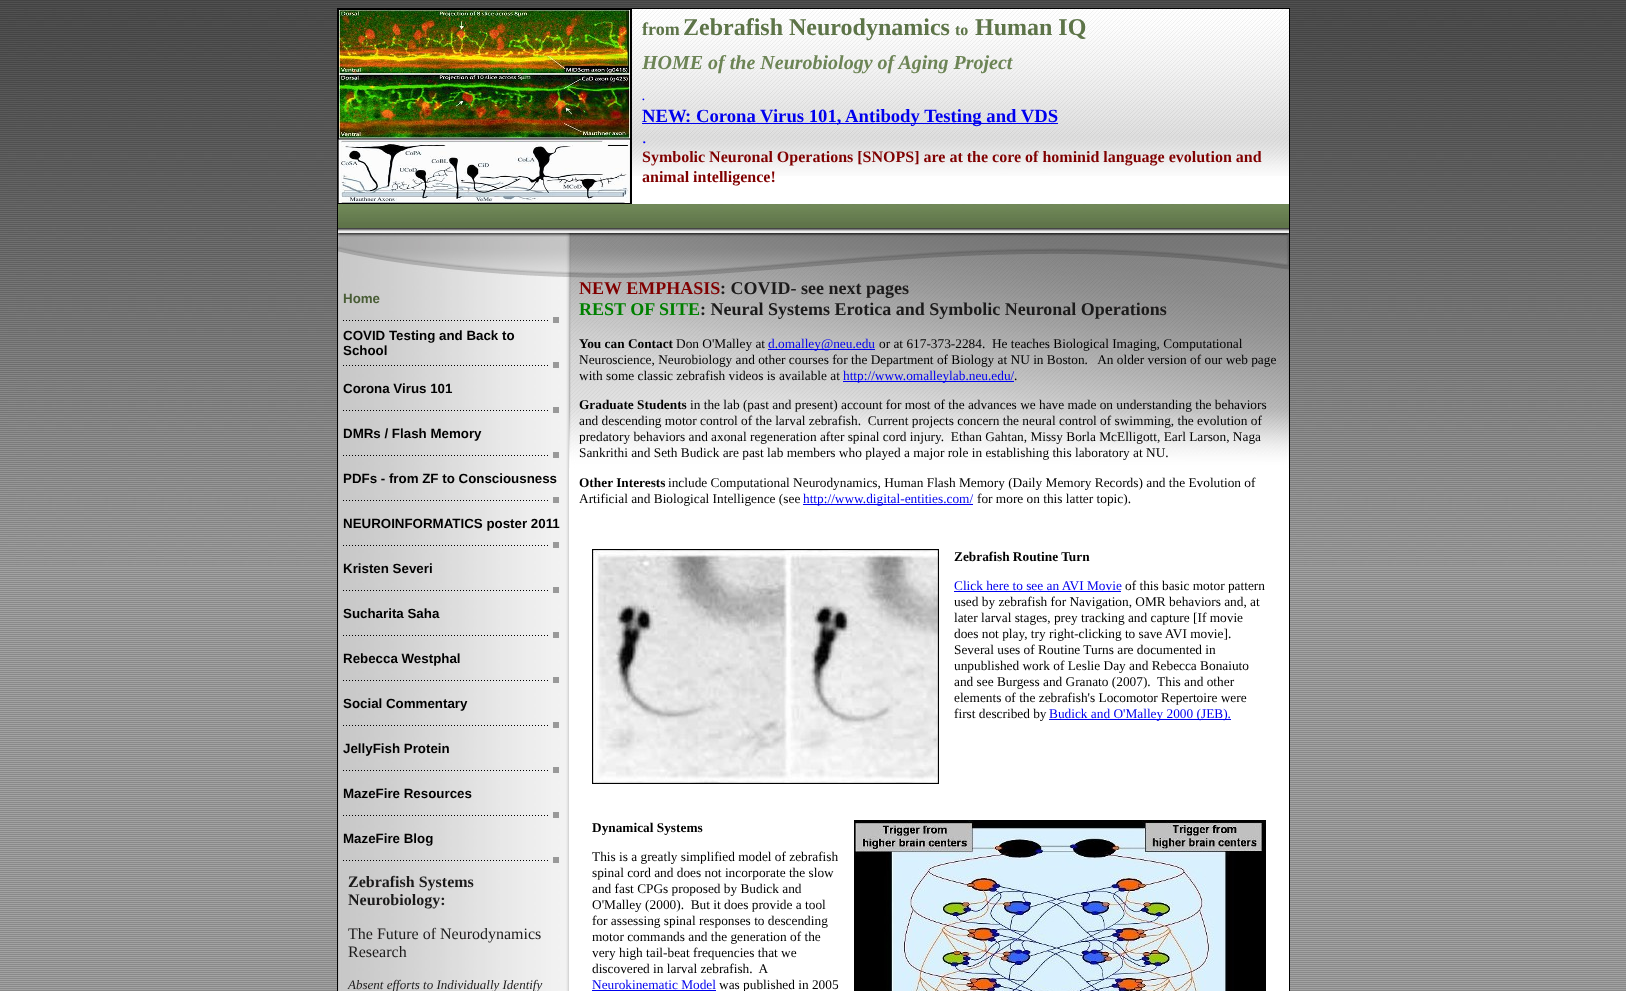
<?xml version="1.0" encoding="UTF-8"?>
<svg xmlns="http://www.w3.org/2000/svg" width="1626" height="991">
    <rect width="100%" height="100%" fill="#FFFFFF"/>
    <image x="0" y="566" width="1626" height="425" href="img_01.png"/>
    <image x="0" y="0" width="1626" height="566" href="img_02.png"/>
    <rect x="337.5" y="8.5" width="952" height="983" fill="none" stroke="#000000"/>
    <image x="338" y="9" width="294" height="195" href="img_03.png"/>
    <rect x="632" y="176" width="657" height="28" fill="#FFFFFF"/>
    <image x="632" y="9" width="657" height="167" href="img_04.png"/>
    <text x="642" y="35" font-family="Liberation Serif" font-size="18" font-weight="700" fill="#5D7448">from</text>
    <text x="683" y="35" font-family="Liberation Serif" font-size="24" font-weight="700" fill="#5D7448">Zebrafish Neurodynamics</text>
    <text x="955" y="35" font-family="Liberation Serif" font-size="16" font-weight="700" fill="#5D7448">to</text>
    <text x="975" y="35" font-family="Liberation Serif" font-size="24" font-weight="700" fill="#5D7448">Human IQ</text>
    <text x="642" y="69" font-family="Liberation Serif" font-size="20" font-weight="700" font-style="italic" fill="#6C8455">HOME of the Neurobiology of Aging Project</text>
    <text x="642" y="100" font-family="Liberation Serif" font-size="11" font-weight="700" fill="#0000FF">.</text>
    <text x="642" y="122" font-family="Liberation Serif" font-size="18.7" font-weight="700" fill="#0000EE">NEW</text>
    <rect x="642" y="123" width="416" height="1" fill="#0000EE"/>
    <text x="685" y="122" font-family="Liberation Serif" font-size="18.7" font-weight="700" fill="#0000EE">: Corona Virus 101, Antibody Testing and VDS</text>
    <text x="642" y="143" font-family="Liberation Serif" font-size="18" fill="#0000FF">.</text>
    <text font-family="Liberation Serif" font-size="16" font-weight="700" fill="#800000">
        <tspan x="642" y="162">Symbolic Neuronal Operations [SNOPS] are at the core of hominid language evolution and</tspan>
        <tspan x="642" y="182">animal intelligence!</tspan>
    </text>
    <image x="338" y="204" width="951" height="29" href="img_05.png"/>
    <image x="338" y="233" width="231" height="45" href="img_06.png"/>
    <image x="569" y="233" width="720" height="45" href="img_07.png"/>
    <image x="338" y="278" width="231" height="713" href="img_08.png"/>
    <image x="343" y="317" width="216" height="6" href="img_09.png"/>
    <text x="343" y="303" font-family="Liberation Sans" font-size="13.33" font-weight="700" fill="#495D36">Home</text>
    <image x="343" y="362" width="216" height="6" href="img_09.png"/>
    <text font-family="Liberation Sans" font-size="13.33" font-weight="700" fill="#000000">
        <tspan x="343" y="340">COVID Testing and Back to</tspan>
        <tspan x="343" y="355">School</tspan>
    </text>
    <image x="343" y="407" width="216" height="6" href="img_09.png"/>
    <text x="343" y="393" font-family="Liberation Sans" font-size="13.33" font-weight="700" fill="#000000">Corona Virus 101</text>
    <image x="343" y="452" width="216" height="6" href="img_09.png"/>
    <text x="343" y="438" font-family="Liberation Sans" font-size="13.33" font-weight="700" fill="#000000">DMRs / Flash Memory</text>
    <image x="343" y="497" width="216" height="6" href="img_09.png"/>
    <text x="343" y="483" font-family="Liberation Sans" font-size="13.33" font-weight="700" fill="#000000">PDFs - from ZF to Consciousness</text>
    <image x="343" y="542" width="216" height="6" href="img_09.png"/>
    <text x="343" y="528" font-family="Liberation Sans" font-size="13.33" font-weight="700" fill="#000000">NEUROINFORMATICS poster 2011</text>
    <image x="343" y="587" width="216" height="6" href="img_09.png"/>
    <text x="343" y="573" font-family="Liberation Sans" font-size="13.33" font-weight="700" fill="#000000">Kristen Severi</text>
    <image x="343" y="632" width="216" height="6" href="img_09.png"/>
    <text x="343" y="618" font-family="Liberation Sans" font-size="13.33" font-weight="700" fill="#000000">Sucharita Saha</text>
    <image x="343" y="677" width="216" height="6" href="img_09.png"/>
    <text x="343" y="663" font-family="Liberation Sans" font-size="13.33" font-weight="700" fill="#000000">Rebecca Westphal</text>
    <image x="343" y="722" width="216" height="6" href="img_09.png"/>
    <text x="343" y="708" font-family="Liberation Sans" font-size="13.33" font-weight="700" fill="#000000">Social Commentary</text>
    <image x="343" y="767" width="216" height="6" href="img_09.png"/>
    <text x="343" y="753" font-family="Liberation Sans" font-size="13.33" font-weight="700" fill="#000000">JellyFish Protein</text>
    <image x="343" y="812" width="216" height="6" href="img_09.png"/>
    <text x="343" y="798" font-family="Liberation Sans" font-size="13.33" font-weight="700" fill="#000000">MazeFire Resources</text>
    <image x="343" y="857" width="216" height="6" href="img_09.png"/>
    <text x="343" y="843" font-family="Liberation Sans" font-size="13.33" font-weight="700" fill="#000000">MazeFire Blog</text>
    <text font-family="Liberation Serif" font-size="16" font-weight="700" fill="#1C1B1B">
        <tspan x="348" y="887">Zebrafish Systems</tspan>
        <tspan x="348" y="905">Neurobiology:</tspan>
    </text>
    <text font-family="Liberation Serif" font-size="16" fill="#1C1B1B">
        <tspan x="348" y="939">The Future of Neurodynamics</tspan>
        <tspan x="348" y="957">Research</tspan>
    </text>
    <text x="348" y="989" font-family="Liberation Serif" font-size="13" font-style="italic" fill="#1C1B1B">Absent efforts to Individually Identify</text>
    <rect x="569" y="468" width="720" height="523" fill="#FFFFFF"/>
    <image x="569" y="278" width="720" height="190" href="img_10.png"/>
    <text x="579" y="294" font-family="Liberation Serif" font-size="18" font-weight="700" fill="#800000">NEW EMPHASIS</text>
    <text x="720" y="294" font-family="Liberation Serif" font-size="18" font-weight="700" fill="#1C1B1B">: COVID- see next pages</text>
    <text x="579" y="315" font-family="Liberation Serif" font-size="18" font-weight="700" fill="#008000">REST OF SITE</text>
    <text x="700" y="315" font-family="Liberation Serif" font-size="18" font-weight="700" fill="#1C1B1B">: Neural Systems Erotica and Symbolic Neuronal Operations</text>
    <text x="579" y="348" font-family="Liberation Serif" font-size="13.33" font-weight="700" fill="#000000">You can Contact</text>
    <text x="676" y="348" font-family="Liberation Serif" font-size="13.33" fill="#000000">Don O'Malley at</text>
    <rect x="768" y="349" width="107" height="1" fill="#0000EE"/>
    <text x="768" y="348" font-family="Liberation Serif" font-size="13.33" fill="#0000EE">d.omalley@neu.edu</text>
    <text x="879" y="348" font-family="Liberation Serif" font-size="13.33" fill="#000000" xml:space="preserve">or at 617-373-2284.  He teaches Biological Imaging, Computational</text>
    <text font-family="Liberation Serif" font-size="13.33" fill="#000000" xml:space="preserve"><tspan x="579" y="364">Neuroscience, Neurobiology and other courses for the Department of Biology at NU in Boston.   An older version of our web page</tspan><tspan x="579" y="380">with some classic zebrafish videos is available at</tspan></text>
    <rect x="843" y="381" width="171" height="1" fill="#0000EE"/>
    <text x="843" y="380" font-family="Liberation Serif" font-size="13.33" fill="#0000EE">http://www.omalleylab.neu.edu/</text>
    <text x="1014" y="380" font-family="Liberation Serif" font-size="13.33" fill="#000000">.</text>
    <text x="579" y="409" font-family="Liberation Serif" font-size="13.33" font-weight="700" fill="#000000">Graduate Students</text>
    <text x="690" y="409" font-family="Liberation Serif" font-size="13.33" fill="#000000">in the lab (past and present) account for most of the advances we have made on understanding the behaviors</text>
    <text font-family="Liberation Serif" font-size="13.33" fill="#000000" xml:space="preserve"><tspan x="579" y="425">and descending motor control of the larval zebrafish.  Current projects concern the neural control of swimming, the evolution of</tspan><tspan x="579" y="441">predatory behaviors and axonal regeneration after spinal cord injury.  Ethan Gahtan, Missy Borla McElligott, Earl Larson, Naga</tspan><tspan x="579" y="457">Sankrithi and Seth Budick are past lab members who played a major role in establishing this laboratory at NU.</tspan></text>
    <text x="579" y="487" font-family="Liberation Serif" font-size="13.33" font-weight="700" fill="#000000">Other Interests</text>
    <text x="668" y="487" font-family="Liberation Serif" font-size="13.33" fill="#000000">include Computational Neurodynamics, Human Flash Memory (Daily Memory Records) and the Evolution of</text>
    <text x="579" y="503" font-family="Liberation Serif" font-size="13.33" fill="#000000">Artificial and Biological Intelligence (see</text>
    <rect x="803" y="504" width="170" height="1" fill="#0000EE"/>
    <text x="803" y="503" font-family="Liberation Serif" font-size="13.33" fill="#0000EE">http://www.digital-entities.com/</text>
    <text x="977" y="503" font-family="Liberation Serif" font-size="13.33" fill="#000000">for more on this latter topic).</text>
    <image x="592" y="549" width="347" height="235" href="img_11.png"/>
    <text x="954" y="561" font-family="Liberation Serif" font-size="13.33" font-weight="700" fill="#000000">Zebrafish Routine Turn</text>
    <text x="954" y="590" font-family="Liberation Serif" font-size="13.33" fill="#0000EE">Click here to see an AVI Movie</text>
    <rect x="954" y="591" width="167" height="1" fill="#0000EE"/>
    <text x="1125" y="590" font-family="Liberation Serif" font-size="13.33" fill="#000000">of this basic motor pattern</text>
    <text font-family="Liberation Serif" font-size="13.33" fill="#000000" xml:space="preserve"><tspan x="954" y="606">used by zebrafish for Navigation, OMR behaviors and, at</tspan><tspan x="954" y="622">later larval stages, prey tracking and capture [If movie</tspan><tspan x="954" y="638">does not play, try right-clicking to save AVI movie].</tspan><tspan x="954" y="654">Several uses of Routine Turns are documented in</tspan><tspan x="954" y="670">unpublished work of Leslie Day and Rebecca Bonaiuto</tspan><tspan x="954" y="686">and see Burgess and Granato (2007).  This and other</tspan><tspan x="954" y="702">elements of the zebrafish's Locomotor Repertoire were</tspan><tspan x="954" y="718">first described by</tspan></text>
    <rect x="1049" y="719" width="182" height="1" fill="#0000EE"/>
    <text x="1049" y="718" font-family="Liberation Serif" font-size="13.33" fill="#0000EE">Budick and O'Malley 2000 (JEB).</text>
    <text x="592" y="832" font-family="Liberation Serif" font-size="13.33" font-weight="700" fill="#000000">Dynamical Systems</text>
    <text font-family="Liberation Serif" font-size="13.33" fill="#000000" xml:space="preserve"><tspan x="592" y="861">This is a greatly simplified model of zebrafish</tspan><tspan x="592" y="877">spinal cord and does not incorporate the slow</tspan><tspan x="592" y="893">and fast CPGs proposed by Budick and</tspan><tspan x="592" y="909">O'Malley (2000).  But it does provide a tool</tspan><tspan x="592" y="925">for assessing spinal responses to descending</tspan><tspan x="592" y="941">motor commands and the generation of the</tspan><tspan x="592" y="957">very high tail-beat frequencies that we</tspan><tspan x="592" y="973">discovered in larval zebrafish.  A</tspan></text>
    <text x="592" y="989" font-family="Liberation Serif" font-size="13.33" fill="#0000EE">Neurokinematic Model</text>
    <rect x="592" y="990" width="124" height="1" fill="#0000EE"/>
    <text x="719" y="989" font-family="Liberation Serif" font-size="13.33" fill="#000000">was published in 2005</text>
    <image x="854" y="820" width="412" height="171" href="img_12.png"/>
</svg>
